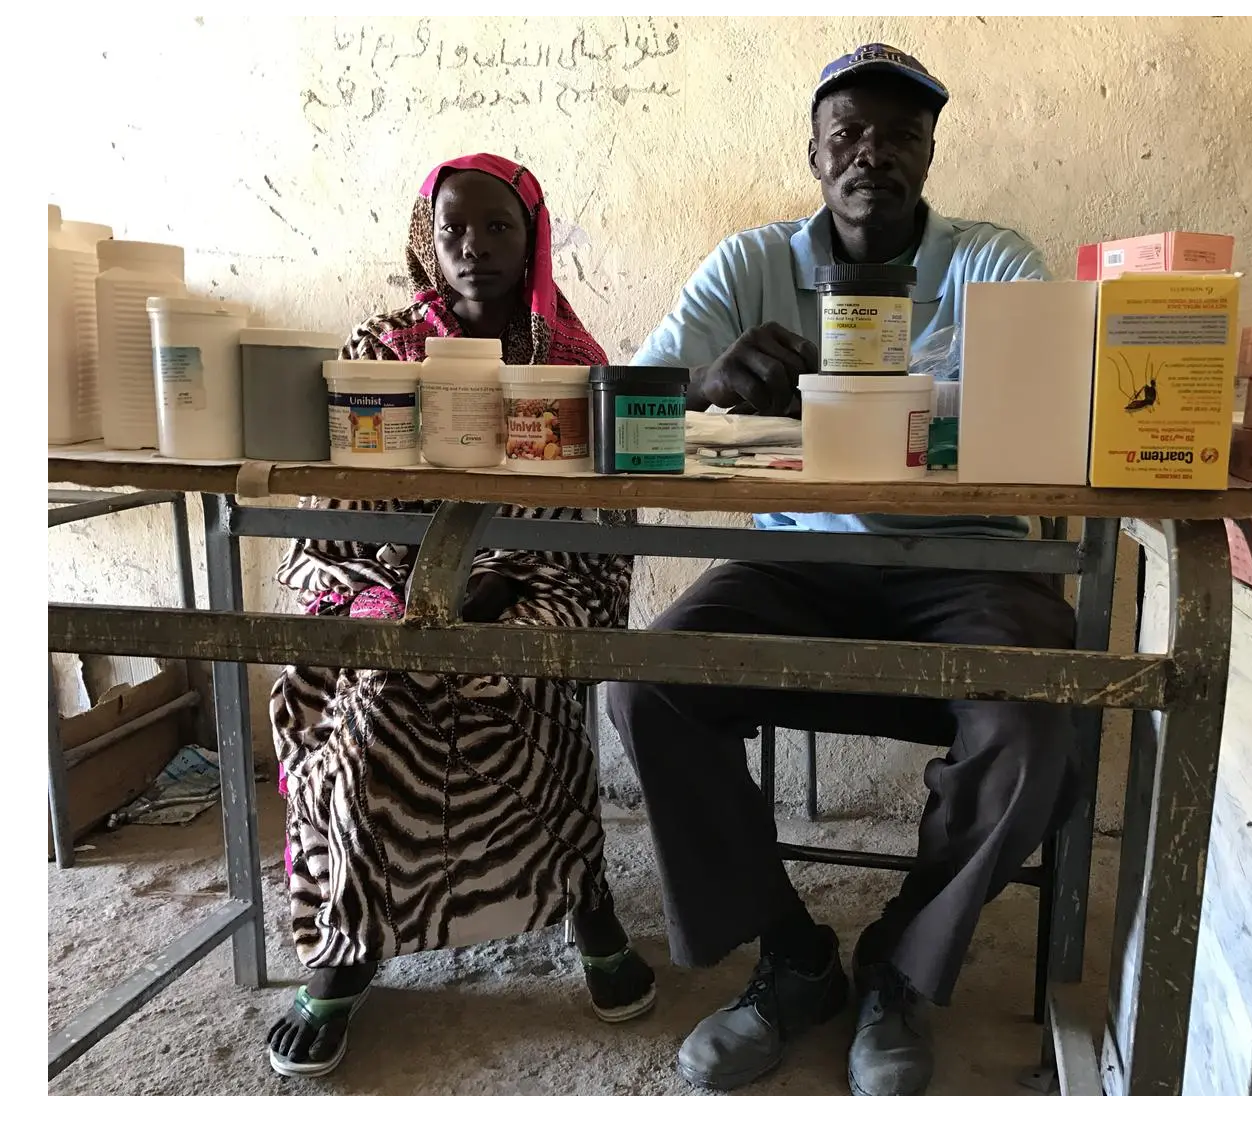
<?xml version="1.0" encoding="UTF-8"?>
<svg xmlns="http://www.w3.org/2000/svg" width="1252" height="1123">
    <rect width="100%" height="100%" fill="#FFFFFF"/>
    <image x="48" y="16" width="1204" height="1080" href="img_01.png"/>
</svg>
